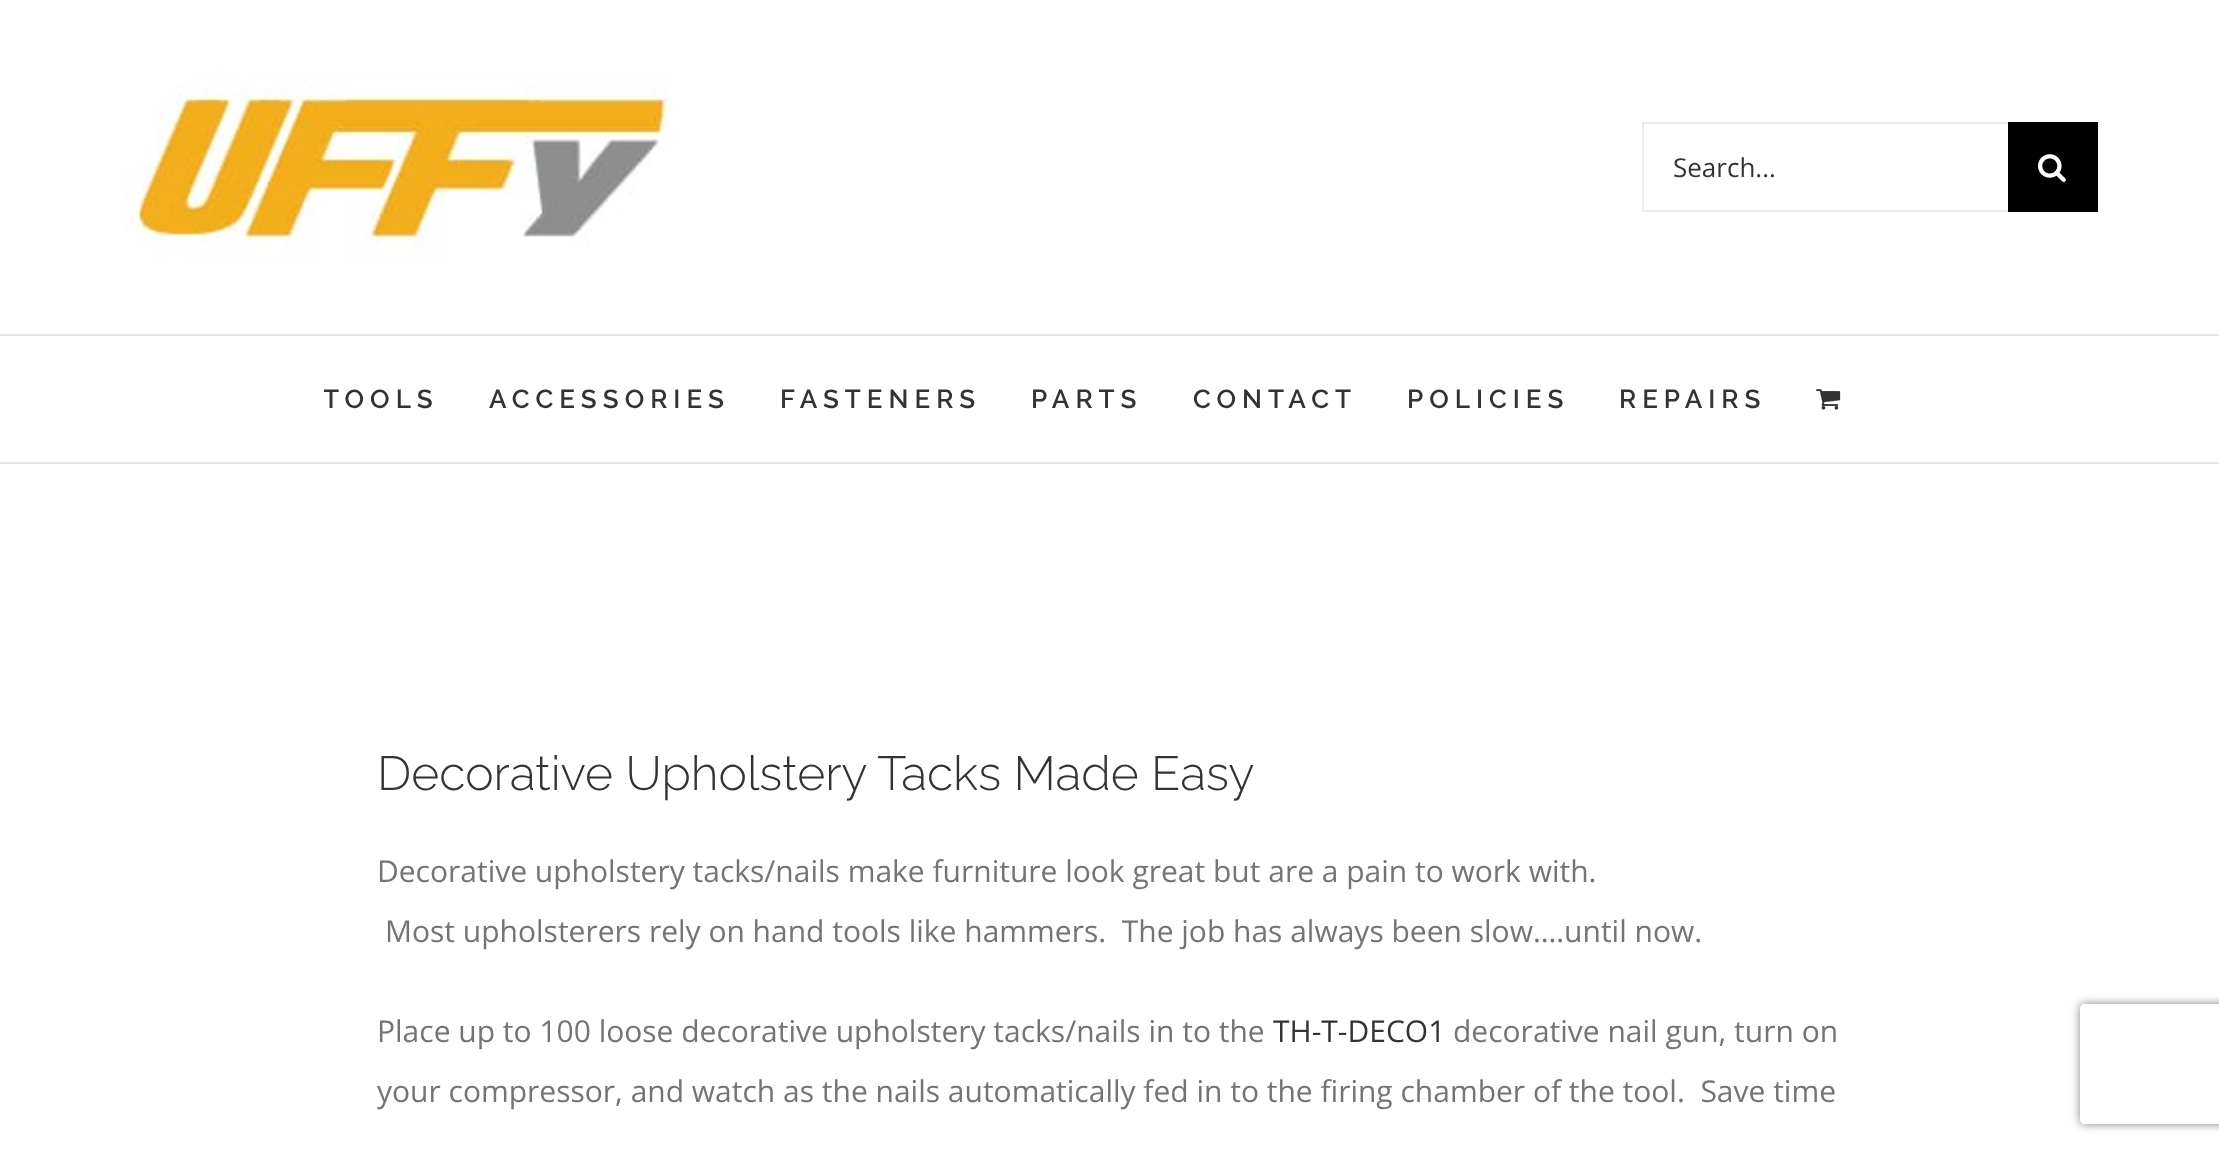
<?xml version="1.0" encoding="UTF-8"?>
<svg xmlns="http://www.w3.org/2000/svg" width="2219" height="1151">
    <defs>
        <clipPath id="clip1"><rect x="324" y="336" width="166" height="126"/></clipPath>
        <clipPath id="clip2"><path d="M 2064 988 H 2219 V 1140 H 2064 Z M 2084 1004 H 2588 C 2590 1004 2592 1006 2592 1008 V 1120 C 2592 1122 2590 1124 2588 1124 H 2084 C 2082 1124 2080 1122 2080 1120 V 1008 C 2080 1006 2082 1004 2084 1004 Z" clip-rule="evenodd"/></clipPath>
        <filter id="blur1" x="-50%" y="-200%" width="200%" height="500%"><feGaussianBlur stdDeviation="5"/></filter>
    </defs>
    <rect width="100%" height="100%" fill="#FFFFFF"/>
    <rect x="0" y="334" width="2219" height="2" fill="#E5E5E5"/>
    <image x="124" y="70" width="545" height="192" href="img_01.png"/>
    <rect x="1642" y="122" width="366" height="2" fill="#EAEAEA"/>
    <rect x="1642" y="210" width="366" height="2" fill="#EAEAEA"/>
    <rect x="1642" y="122" width="2" height="90" fill="#EAEAEA"/>
    <text x="1673" y="177" font-family="Open Sans" font-size="26" fill="#333333">Search...</text>
    <rect x="2008" y="122" width="90" height="90" fill="#000000"/>
    <image x="2038" y="154" width="28" height="28" href="img_02.png"/>
    <rect x="0" y="462" width="2219" height="2" fill="#E5E5E5"/>
    <g clip-path="url(#clip1)">
        <text x="323" y="408" font-family="Raleway" font-size="26" font-weight="600" letter-spacing="6" fill="#333333">TOOLS</text>
    </g>
    <text x="489" y="408" font-family="Raleway" font-size="26" font-weight="600" letter-spacing="6" fill="#333333">ACCESSORIES</text>
    <text x="780" y="408" font-family="Raleway" font-size="26" font-weight="600" letter-spacing="6" fill="#333333">FASTENERS</text>
    <text x="1031" y="408" font-family="Raleway" font-size="26" font-weight="600" letter-spacing="6" fill="#333333">PARTS</text>
    <text x="1193" y="408" font-family="Raleway" font-size="26" font-weight="600" letter-spacing="6" fill="#333333">CONTACT</text>
    <text x="1407" y="408" font-family="Raleway" font-size="26" font-weight="600" letter-spacing="6" fill="#333333">POLICIES</text>
    <text x="1619" y="408" font-family="Raleway" font-size="26" font-weight="600" letter-spacing="6" fill="#333333">REPAIRS</text>
    <image x="1816" y="389" width="25" height="21" href="img_03.png"/>
    <text x="377" y="790" font-family="Raleway" font-size="48" font-weight="300" fill="#333333">Decorative Upholstery Tacks Made Easy</text>
    <text x="377" y="882" font-family="Open Sans" font-size="30" fill="#747474">Decorative upholstery tacks/nails make furniture look great but are a pain to work with.</text>
    <text x="385" y="942" font-family="Open Sans" font-size="30" fill="#747474" xml:space="preserve">Most upholsterers rely on hand tools like hammers.  The job has always been slow….until now.</text>
    <text x="377" y="1042" font-family="Open Sans" font-size="30" fill="#747474">Place up to 100 loose decorative upholstery tacks/nails in to the</text>
    <text x="1273" y="1042" font-family="Open Sans" font-size="30" fill="#333333">TH-T-DECO1</text>
    <text x="1453" y="1042" font-family="Open Sans" font-size="30" fill="#747474">decorative nail gun, turn on</text>
    <text x="377" y="1102" font-family="Open Sans" font-size="30" fill="#747474" xml:space="preserve">your compressor, and watch as the nails automatically fed in to the firing chamber of the tool.  Save time</text>
    <g clip-path="url(#clip2)">
        <rect x="2080" y="1004" width="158" height="120" rx="4" fill="#808080" filter="url(#blur1)"/>
    </g>
</svg>
